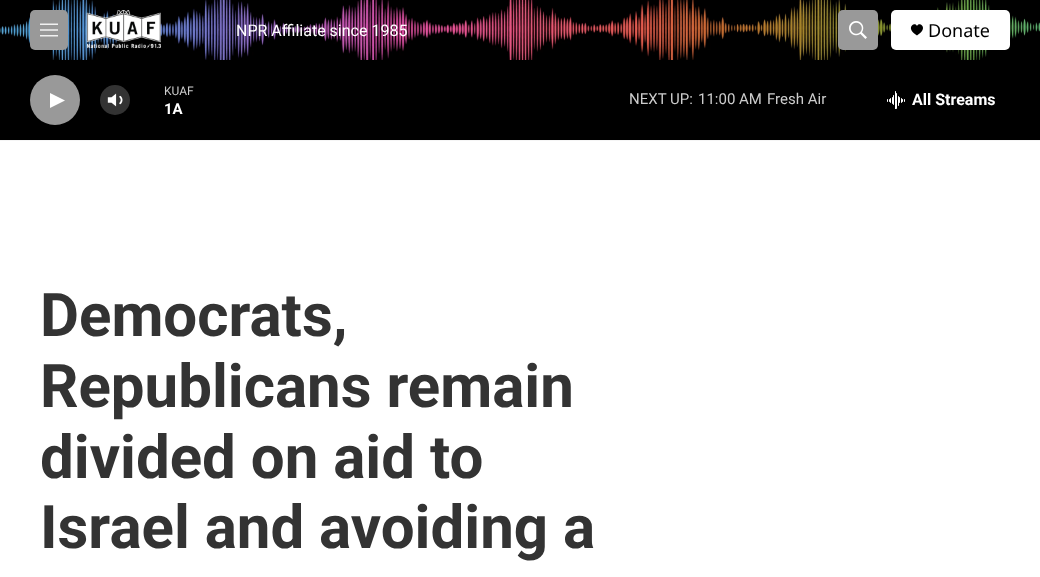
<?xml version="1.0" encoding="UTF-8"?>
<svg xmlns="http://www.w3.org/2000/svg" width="1040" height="577">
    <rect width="100%" height="100%" fill="#FFFFFF"/>
    <rect x="0" y="140" width="1040" height="1" fill="#F5F5F5"/>
    <image x="0" y="0" width="1040" height="60" href="img_01.png"/>
    <rect x="30" y="10" width="38" height="40" rx="5" fill="#999999"/>
    <image x="40" y="23" width="18" height="14" href="img_02.png"/>
    <image x="86" y="10" width="75" height="39" href="img_03.png"/>
    <text x="236" y="36" font-family="Roboto" font-size="16" fill="#FFFFFF">NPR Affiliate since 1985</text>
    <rect x="838" y="10" width="40" height="40" rx="5" fill="#999999"/>
    <image x="849" y="21" width="18" height="18" href="img_04.png"/>
    <rect x="891" y="10" width="119" height="40" rx="5" fill="#FFFFFF"/>
    <path d="M 917 26 C 915 21 904.5 28 917 35.5 C 929.5 28 919 21 917 26 Z" fill="#000000"/>
    <text x="928" y="37" font-family="Noto Sans" font-size="18" fill="#000000">Donate</text>
    <rect x="0" y="60" width="1040" height="80" fill="#000000"/>
    <circle cx="55" cy="100" r="25" fill="#999999"/>
    <path d="M 50 93 L 65 100.5 L 50 108 Z" fill="#FFFFFF"/>
    <image x="107" y="93" width="16" height="14" href="img_05.png"/>
    <circle cx="115" cy="100" r="15" fill="#FFFFFF" fill-opacity="0.2"/>
    <text x="164" y="95" font-family="Roboto" font-size="12" fill="#CCCCCC">KUAF</text>
    <text x="164" y="114" font-family="'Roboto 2'" font-size="15" font-weight="700" fill="#FFFFFF">1A</text>
    <text x="629" y="104" font-family="Roboto" font-size="15" fill="#CCCCCC">NEXT UP:</text>
    <text x="698" y="104" font-family="Roboto" font-size="15" fill="#CCCCCC">11:00 AM</text>
    <text x="767" y="104" font-family="Roboto" font-size="15" fill="#CCCCCC">Fresh Air</text>
    <image x="887" y="91" width="18" height="18" href="img_06.png"/>
    <text x="912" y="105" font-family="'Roboto 2'" font-size="16" font-weight="700" fill="#FFFFFF">All Streams</text>
    <text font-family="Roboto" font-size="60" font-weight="700" fill="#333333">
        <tspan x="40" y="336">Democrats,</tspan>
        <tspan x="40" y="407">Republicans remain</tspan>
        <tspan x="40" y="478">divided on aid to</tspan>
        <tspan x="40" y="548">Israel and avoiding a</tspan>
    </text>
</svg>
